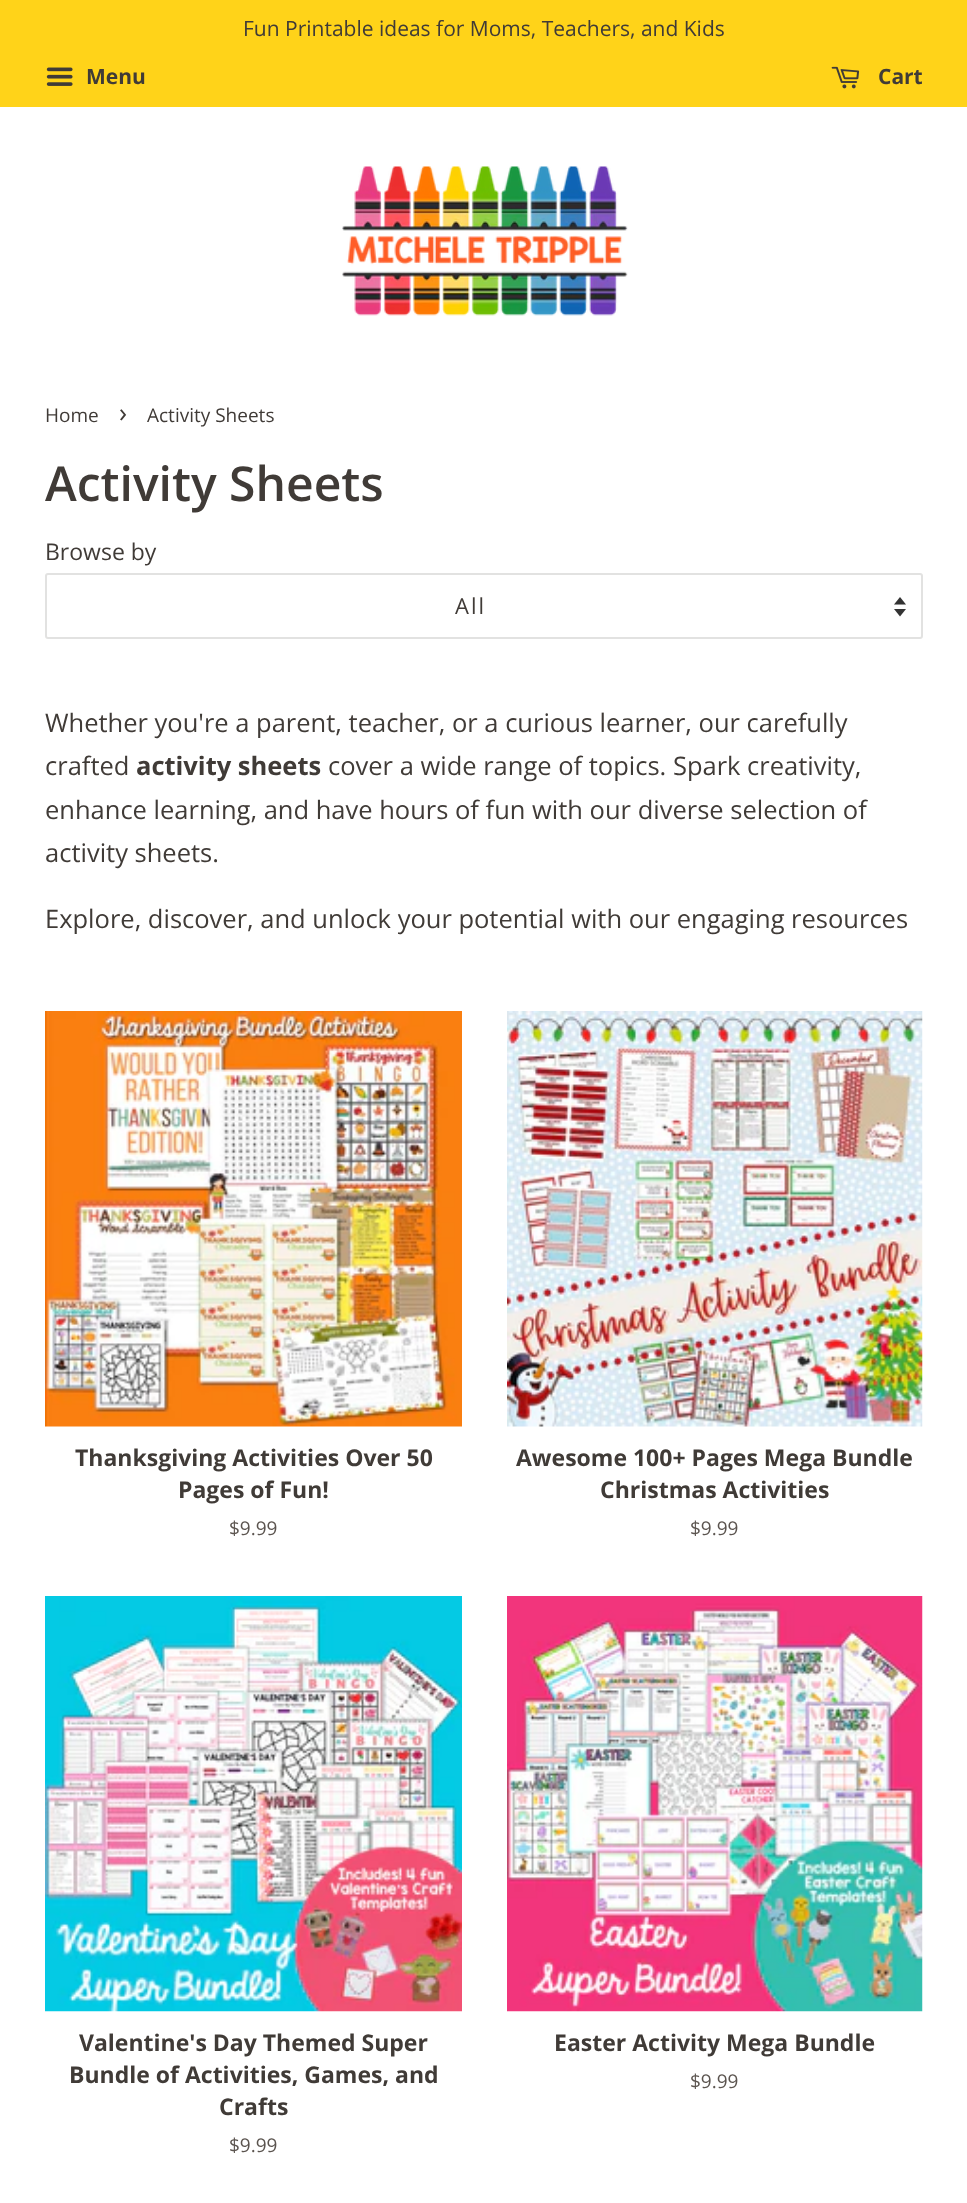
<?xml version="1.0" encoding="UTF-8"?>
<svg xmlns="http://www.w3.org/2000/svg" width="967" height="2203">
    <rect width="100%" height="100%" fill="#FFFFFF"/>
    <rect x="0" y="0" width="967" height="107" fill="#FFD319"/>
    <text x="243" y="36" font-family="Open Sans" font-size="21" fill="#403B37">Fun Printable ideas for Moms, Teachers, and Kids</text>
    <image x="46" y="67" width="27" height="19" href="img_01.png"/>
    <text x="86" y="84" font-family="Open Sans" font-size="21" font-weight="700" fill="#403B37">Menu</text>
    <image x="831" y="66" width="29" height="23" href="img_02.png"/>
    <text x="878" y="84" font-family="Open Sans" font-size="21" font-weight="700" fill="#403B37">Cart</text>
    <image x="342" y="166" width="286" height="150" href="img_03.png"/>
    <text x="45" y="422" font-family="Open Sans" font-size="19" fill="#403B37">Home</text>
    <text x="119" y="422" font-family="Open Sans" font-size="27" fill="#403B37">›</text>
    <text x="147" y="422" font-family="Open Sans" font-size="19" fill="#403B37">Activity Sheets</text>
    <text x="45" y="501" font-family="Open Sans" font-size="48" font-weight="600" fill="#403B37">Activity Sheets</text>
    <text x="45" y="560" font-family="Open Sans" font-size="23" fill="#403B37">Browse by</text>
    <image x="894" y="597" width="12" height="20" href="img_04.png"/>
    <rect x="46" y="574" width="876" height="64" rx="2" fill="none" stroke="#E2E2E1" stroke-width="2"/>
    <text x="455" y="614" font-family="Open Sans" font-size="22" letter-spacing="2" fill="#403B37">All</text>
    <text font-family="Open Sans" font-size="25.5" fill="#403B37">
        <tspan x="45" y="732">Whether you're a parent, teacher, or a curious learner, our carefully</tspan>
        <tspan x="45" y="775">crafted</tspan>
    </text>
    <text x="136" y="775" font-family="Open Sans" font-size="25.5" font-weight="700" fill="#403B37">activity sheets</text>
    <text x="328" y="775" font-family="Open Sans" font-size="25.5" fill="#403B37">cover a wide range of topics. Spark creativity,</text>
    <text font-family="Open Sans" font-size="25.5" fill="#403B37">
        <tspan x="45" y="819">enhance learning, and have hours of fun with our diverse selection of</tspan>
        <tspan x="45" y="862">activity sheets.</tspan>
    </text>
    <text x="45" y="928" font-family="Open Sans" font-size="25.5" fill="#403B37">Explore, discover, and unlock your potential with our engaging resources</text>
    <image x="45" y="1011" width="417" height="416" href="img_05.png"/>
    <text x="75" y="1466" font-family="Open Sans" font-size="23" font-weight="700" fill="#403B37">Thanksgiving Activities Over 50</text>
    <text x="178" y="1498" font-family="Open Sans" font-size="23" font-weight="700" fill="#403B37">Pages of Fun!</text>
    <text x="229" y="1535" font-family="Open Sans" font-size="19" fill="#5B544F">$9.99</text>
    <image x="507" y="1011" width="416" height="416" href="img_06.png"/>
    <text x="516" y="1466" font-family="Open Sans" font-size="23" font-weight="700" fill="#403B37">Awesome 100+ Pages Mega Bundle</text>
    <text x="600" y="1498" font-family="Open Sans" font-size="23" font-weight="700" fill="#403B37">Christmas Activities</text>
    <text x="690" y="1535" font-family="Open Sans" font-size="19" fill="#5B544F">$9.99</text>
    <image x="45" y="1596" width="417" height="416" href="img_07.png"/>
    <text x="79" y="2051" font-family="Open Sans" font-size="23" font-weight="700" fill="#403B37">Valentine's Day Themed Super</text>
    <text x="69" y="2083" font-family="Open Sans" font-size="23" font-weight="700" fill="#403B37">Bundle of Activities, Games, and</text>
    <text x="219" y="2115" font-family="Open Sans" font-size="23" font-weight="700" fill="#403B37">Crafts</text>
    <text x="229" y="2152" font-family="Open Sans" font-size="19" fill="#5B544F">$9.99</text>
    <image x="507" y="1596" width="416" height="416" href="img_08.png"/>
    <text x="554" y="2051" font-family="Open Sans" font-size="23" font-weight="700" fill="#403B37">Easter Activity Mega Bundle</text>
    <text x="690" y="2088" font-family="Open Sans" font-size="19" fill="#5B544F">$9.99</text>
</svg>
